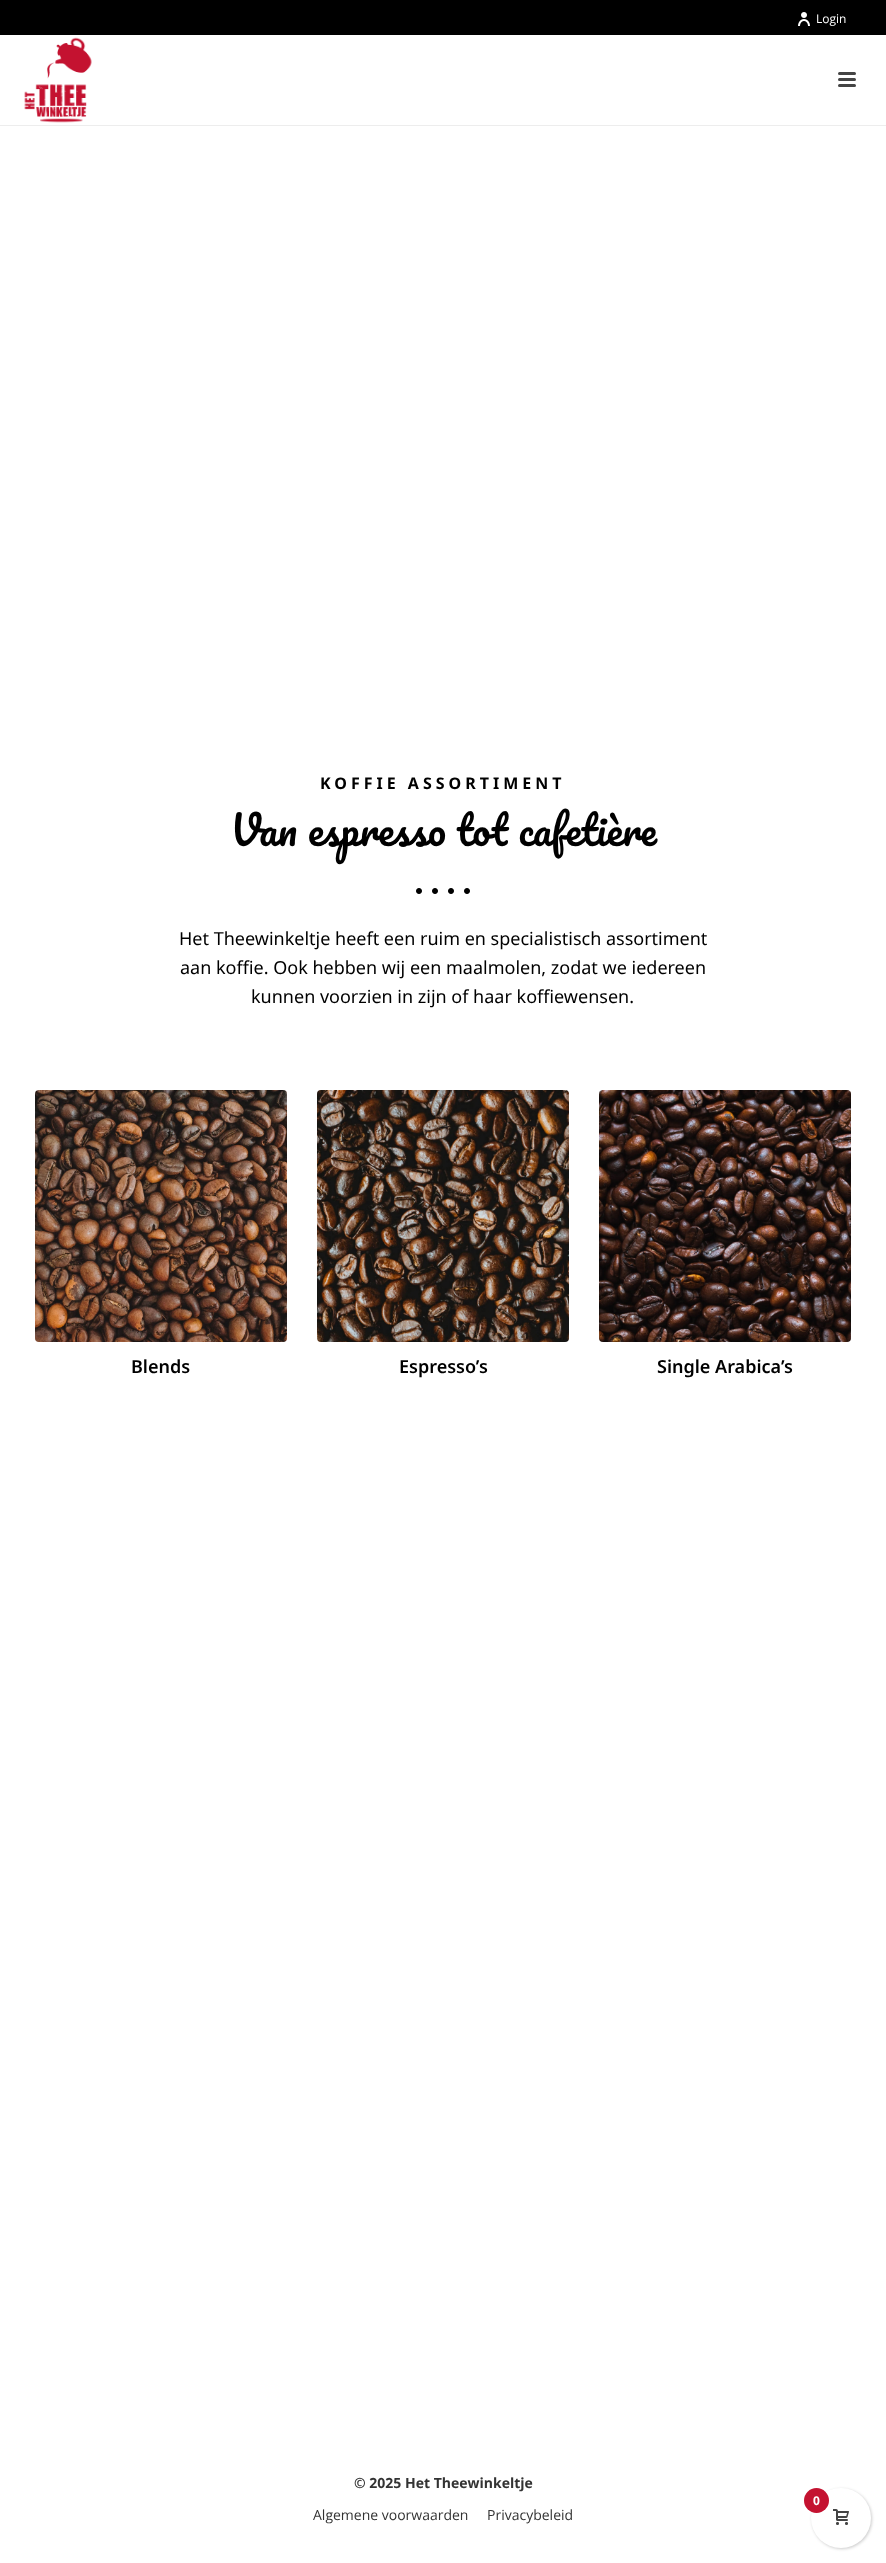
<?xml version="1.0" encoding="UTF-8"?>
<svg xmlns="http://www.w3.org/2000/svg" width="886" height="2563">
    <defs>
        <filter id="blur1" x="-50%" y="-200%" width="200%" height="500%"><feGaussianBlur stdDeviation="1.5"/></filter>
    </defs>
    <rect width="100%" height="100%" fill="#FFFFFF"/>
    <rect x="0" y="0" width="886" height="35" fill="#000000"/>
    <image x="798" y="12" width="12" height="14" href="img_01.png"/>
    <text x="816" y="23" font-family="Open Sans" font-size="12" fill="#FFFFFF">Login</text>
    <rect x="0" y="125" width="886" height="1" fill="#EDEDED"/>
    <image x="24" y="37" width="68" height="86" href="img_02.png"/>
    <rect x="838" y="72" width="18" height="3" rx="1.5" fill="#444444"/>
    <rect x="838" y="78" width="18" height="3" rx="1.5" fill="#444444"/>
    <rect x="838" y="84" width="18" height="3" rx="1.5" fill="#444444"/>
    <text x="320" y="789" font-family="Noto Sans" font-size="16" font-weight="700" letter-spacing="4" fill="#000000">KOFFIE ASSORTIMENT</text>
    <text x="230" y="846" font-family="Pacifico" font-size="40" fill="#000000">Van espresso tot cafetière</text>
    <image x="416" y="888" width="54" height="6" href="img_03.png"/>
    <text x="179" y="945" font-family="Noto Sans" font-size="18" fill="#000000">Het Theewinkeltje heeft een ruim en specialistisch assortiment</text>
    <text x="180" y="974" font-family="Noto Sans" font-size="18" fill="#000000">aan koffie. Ook hebben wij een maalmolen, zodat we iedereen</text>
    <text x="251" y="1003" font-family="Noto Sans" font-size="18" fill="#000000">kunnen voorzien in zijn of haar koffiewensen.</text>
    <image x="35" y="1090" width="252" height="252" href="img_04.png"/>
    <text x="131" y="1373" font-family="Noto Sans" font-size="18" font-weight="600" fill="#000000">Blends</text>
    <image x="317" y="1090" width="252" height="252" href="img_05.png"/>
    <text x="399" y="1373" font-family="Noto Sans" font-size="18" font-weight="600" fill="#000000">Espresso’s</text>
    <image x="599" y="1090" width="252" height="252" href="img_06.png"/>
    <text x="657" y="1373" font-family="Noto Sans" font-size="18" font-weight="600" fill="#000000">Single Arabica’s</text>
    <text x="354" y="2488" font-family="Open Sans" font-size="14" font-weight="700" fill="#333333">© 2025 Het Theewinkeltje</text>
    <text x="313" y="2520" font-family="Open Sans" font-size="14" fill="#333333">Algemene voorwaarden</text>
    <text x="487" y="2520" font-family="Open Sans" font-size="14" fill="#333333">Privacybeleid</text>
    <rect x="812" y="2489" width="60" height="60" rx="30" fill="#000000" fill-opacity="0.2" filter="url(#blur1)"/>
    <circle cx="841" cy="2518" r="30" fill="#FFFFFF"/>
    <circle cx="816.5" cy="2500.5" r="12.5" fill="#C41230"/>
    <text x="813" y="2505" font-family="Open Sans" font-size="12" font-weight="700" fill="#FFFFFF">0</text>
    <image x="833" y="2509" width="16" height="16" href="img_07.png"/>
</svg>
